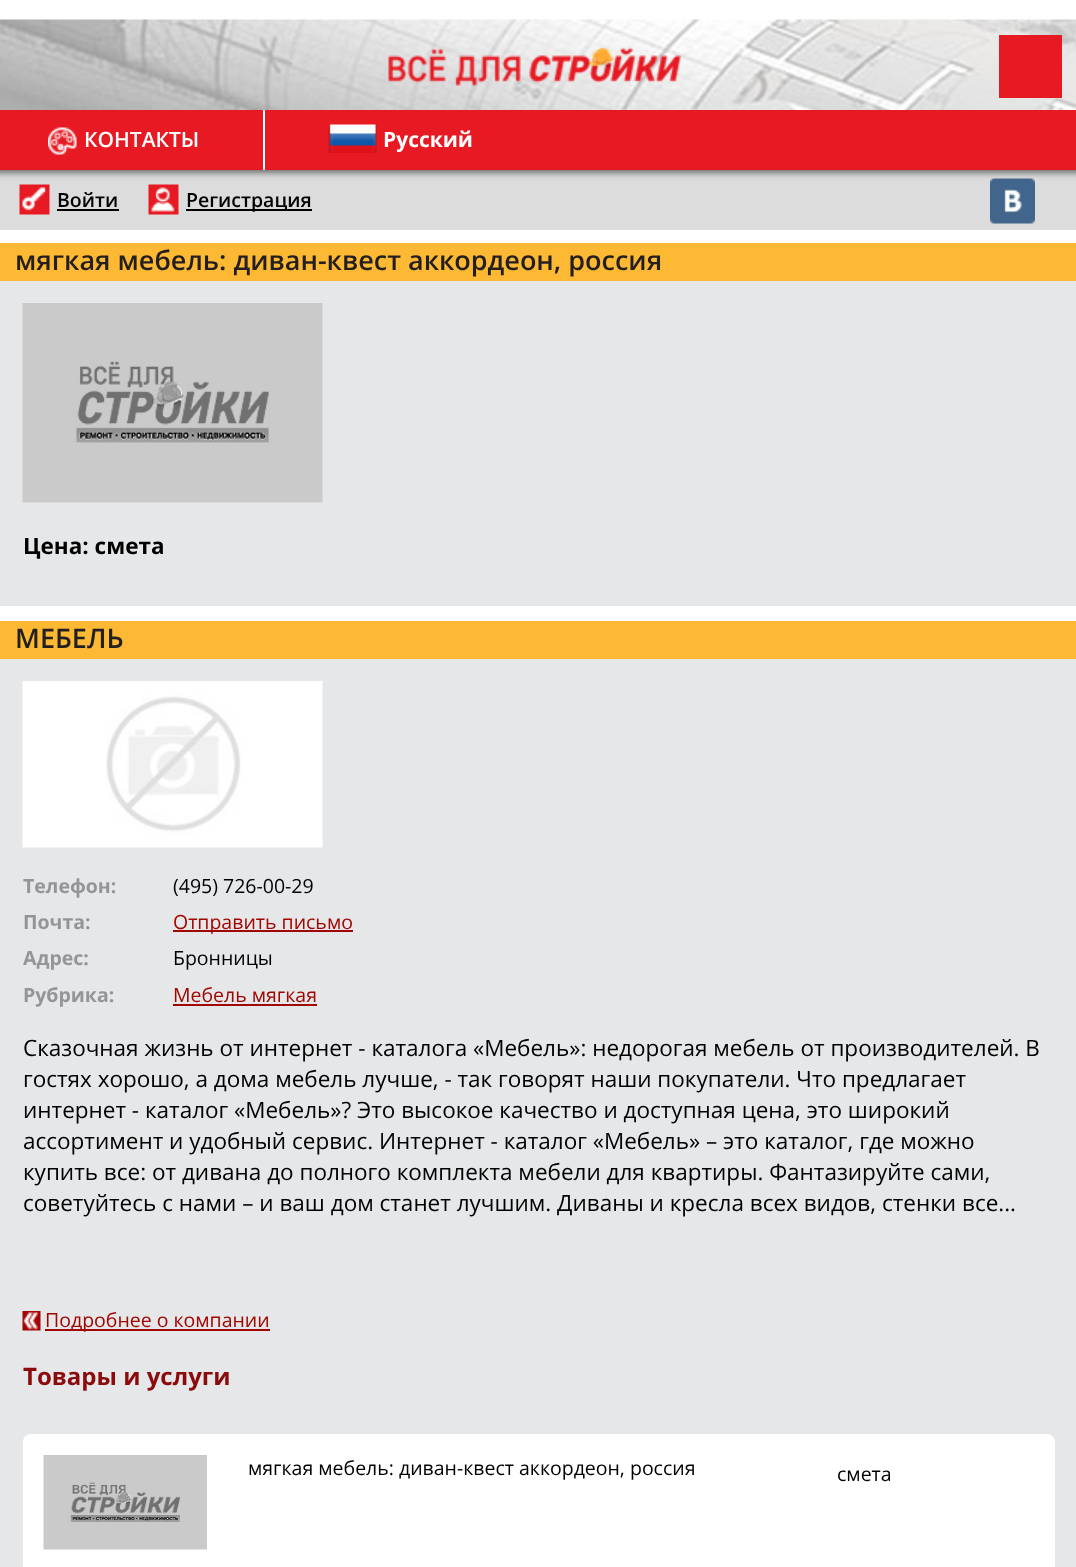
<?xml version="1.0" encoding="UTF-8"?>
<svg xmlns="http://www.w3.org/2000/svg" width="1076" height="1567">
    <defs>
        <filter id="blur1" x="-50%" y="-200%" width="200%" height="500%"><feGaussianBlur stdDeviation="3"/></filter>
    </defs>
    <rect width="100%" height="100%" fill="#FFFFFF"/>
    <image x="0" y="19" width="1076" height="91" href="img_01.png"/>
    <rect x="999" y="35" width="63" height="63" fill="#E71A23"/>
    <image x="388" y="47" width="293" height="39" href="img_02.png"/>
    <rect x="0" y="170" width="1076" height="60" fill="#DCDCDC"/>
    <rect x="-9" y="125" width="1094" height="48" fill="#000000" fill-opacity="0.5" filter="url(#blur1)"/>
    <rect x="0" y="110" width="1076" height="60" fill="#E71A23"/>
    <image x="48" y="127" width="29" height="28" href="img_03.png"/>
    <text x="84" y="147" font-family="Open Sans" font-size="21" font-weight="600" fill="#FFFFFF">КОНТАКТЫ</text>
    <rect x="263" y="110" width="2" height="60" fill="#FFFFFF"/>
    <image x="328" y="124" width="49" height="29" href="img_04.png"/>
    <text x="383" y="147" font-family="Open Sans" font-size="21" font-weight="700" fill="#FFFFFF">Русский</text>
    <image x="19" y="184" width="31" height="31" href="img_05.png"/>
    <text x="57" y="207" font-family="Open Sans" font-size="19.5" font-weight="600" fill="#000000">Войти</text>
    <rect x="57" y="209" width="62" height="2" fill="#000000"/>
    <image x="148" y="184" width="31" height="31" href="img_06.png"/>
    <rect x="186" y="209" width="126" height="2" fill="#000000"/>
    <text x="186" y="207" font-family="Open Sans" font-size="19.5" font-weight="600" fill="#000000">Регистрация</text>
    <image x="990" y="178" width="45" height="46" href="img_07.png"/>
    <rect x="0" y="281" width="1076" height="325" fill="#E6E7E9"/>
    <rect x="0" y="243" width="1076" height="38" fill="#FDB933"/>
    <text x="15" y="270" font-family="Open Sans" font-size="27" font-weight="600" fill="#231F20">мягкая мебель: диван-квест аккордеон, россия</text>
    <image x="22" y="303" width="301" height="200" href="img_08.png"/>
    <text x="23" y="554" font-family="Open Sans" font-size="22.5" font-weight="700" fill="#000000">Цена: смета</text>
    <rect x="0" y="621" width="1076" height="38" fill="#FDB933"/>
    <text x="15" y="648" font-family="Open Sans" font-size="27" font-weight="600" fill="#231F20">МЕБЕЛЬ</text>
    <rect x="0" y="659" width="1076" height="908" fill="#E6E7E9"/>
    <image x="22" y="681" width="301" height="167" href="img_09.png"/>
    <text x="23" y="893" font-family="Open Sans" font-size="19.5" font-weight="700" fill="#949599">Телефон:</text>
    <text x="173" y="893" font-family="Open Sans" font-size="19.5" fill="#000000">(495) 726-00-29</text>
    <text x="23" y="929" font-family="Open Sans" font-size="19.5" font-weight="700" fill="#949599">Почта:</text>
    <rect x="173" y="930" width="180" height="2" fill="#A10600"/>
    <text x="173" y="929" font-family="Open Sans" font-size="19.5" fill="#A10600">Отправить письмо</text>
    <text x="23" y="965" font-family="Open Sans" font-size="19.5" font-weight="700" fill="#949599">Адрес:</text>
    <text x="173" y="965" font-family="Open Sans" font-size="19.5" fill="#000000">Бронницы</text>
    <text x="23" y="1002" font-family="Open Sans" font-size="19.5" font-weight="700" fill="#949599">Рубрика:</text>
    <text x="173" y="1002" font-family="Open Sans" font-size="19.5" fill="#A10600">Мебель мягкая</text>
    <rect x="173" y="1004" width="144" height="2" fill="#A10600"/>
    <text font-family="Open Sans" font-size="22.5" fill="#000000">
        <tspan x="23" y="1056">Сказочная жизнь от интернет - каталога «Мебель»: недорогая мебель от производителей. В</tspan>
        <tspan x="23" y="1087">гостях хорошо, а дома мебель лучше, - так говорят наши покупатели. Что предлагает</tspan>
        <tspan x="23" y="1118">интернет - каталог «Мебель»? Это высокое качество и доступная цена, это широкий</tspan>
        <tspan x="23" y="1149">ассортимент и удобный сервис. Интернет - каталог «Мебель» – это каталог, где можно</tspan>
        <tspan x="23" y="1180">купить все: от дивана до полного комплекта мебели для квартиры. Фантазируйте сами,</tspan>
        <tspan x="23" y="1211">советуйтесь с нами – и ваш дом станет лучшим. Диваны и кресла всех видов, стенки все...</tspan>
    </text>
    <image x="22" y="1311" width="19" height="20" href="img_10.png"/>
    <rect x="45" y="1329" width="225" height="2" fill="#A10600"/>
    <text x="45" y="1327" font-family="Open Sans" font-size="19.5" fill="#A10600">Подробнее о компании</text>
    <text x="23" y="1385" font-family="Open Sans" font-size="24" font-weight="700" fill="#8B0B0C">Товары и услуги</text>
    <rect x="23" y="1434" width="1032" height="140" rx="8" fill="#FFFFFF"/>
    <image x="43" y="1455" width="164" height="95" href="img_11.png"/>
    <text x="248" y="1475" font-family="Open Sans" font-size="19.5" fill="#000000">мягкая мебель: диван-квест аккордеон, россия</text>
    <text x="837" y="1481" font-family="Open Sans" font-size="19.5" fill="#000000">смета</text>
</svg>
